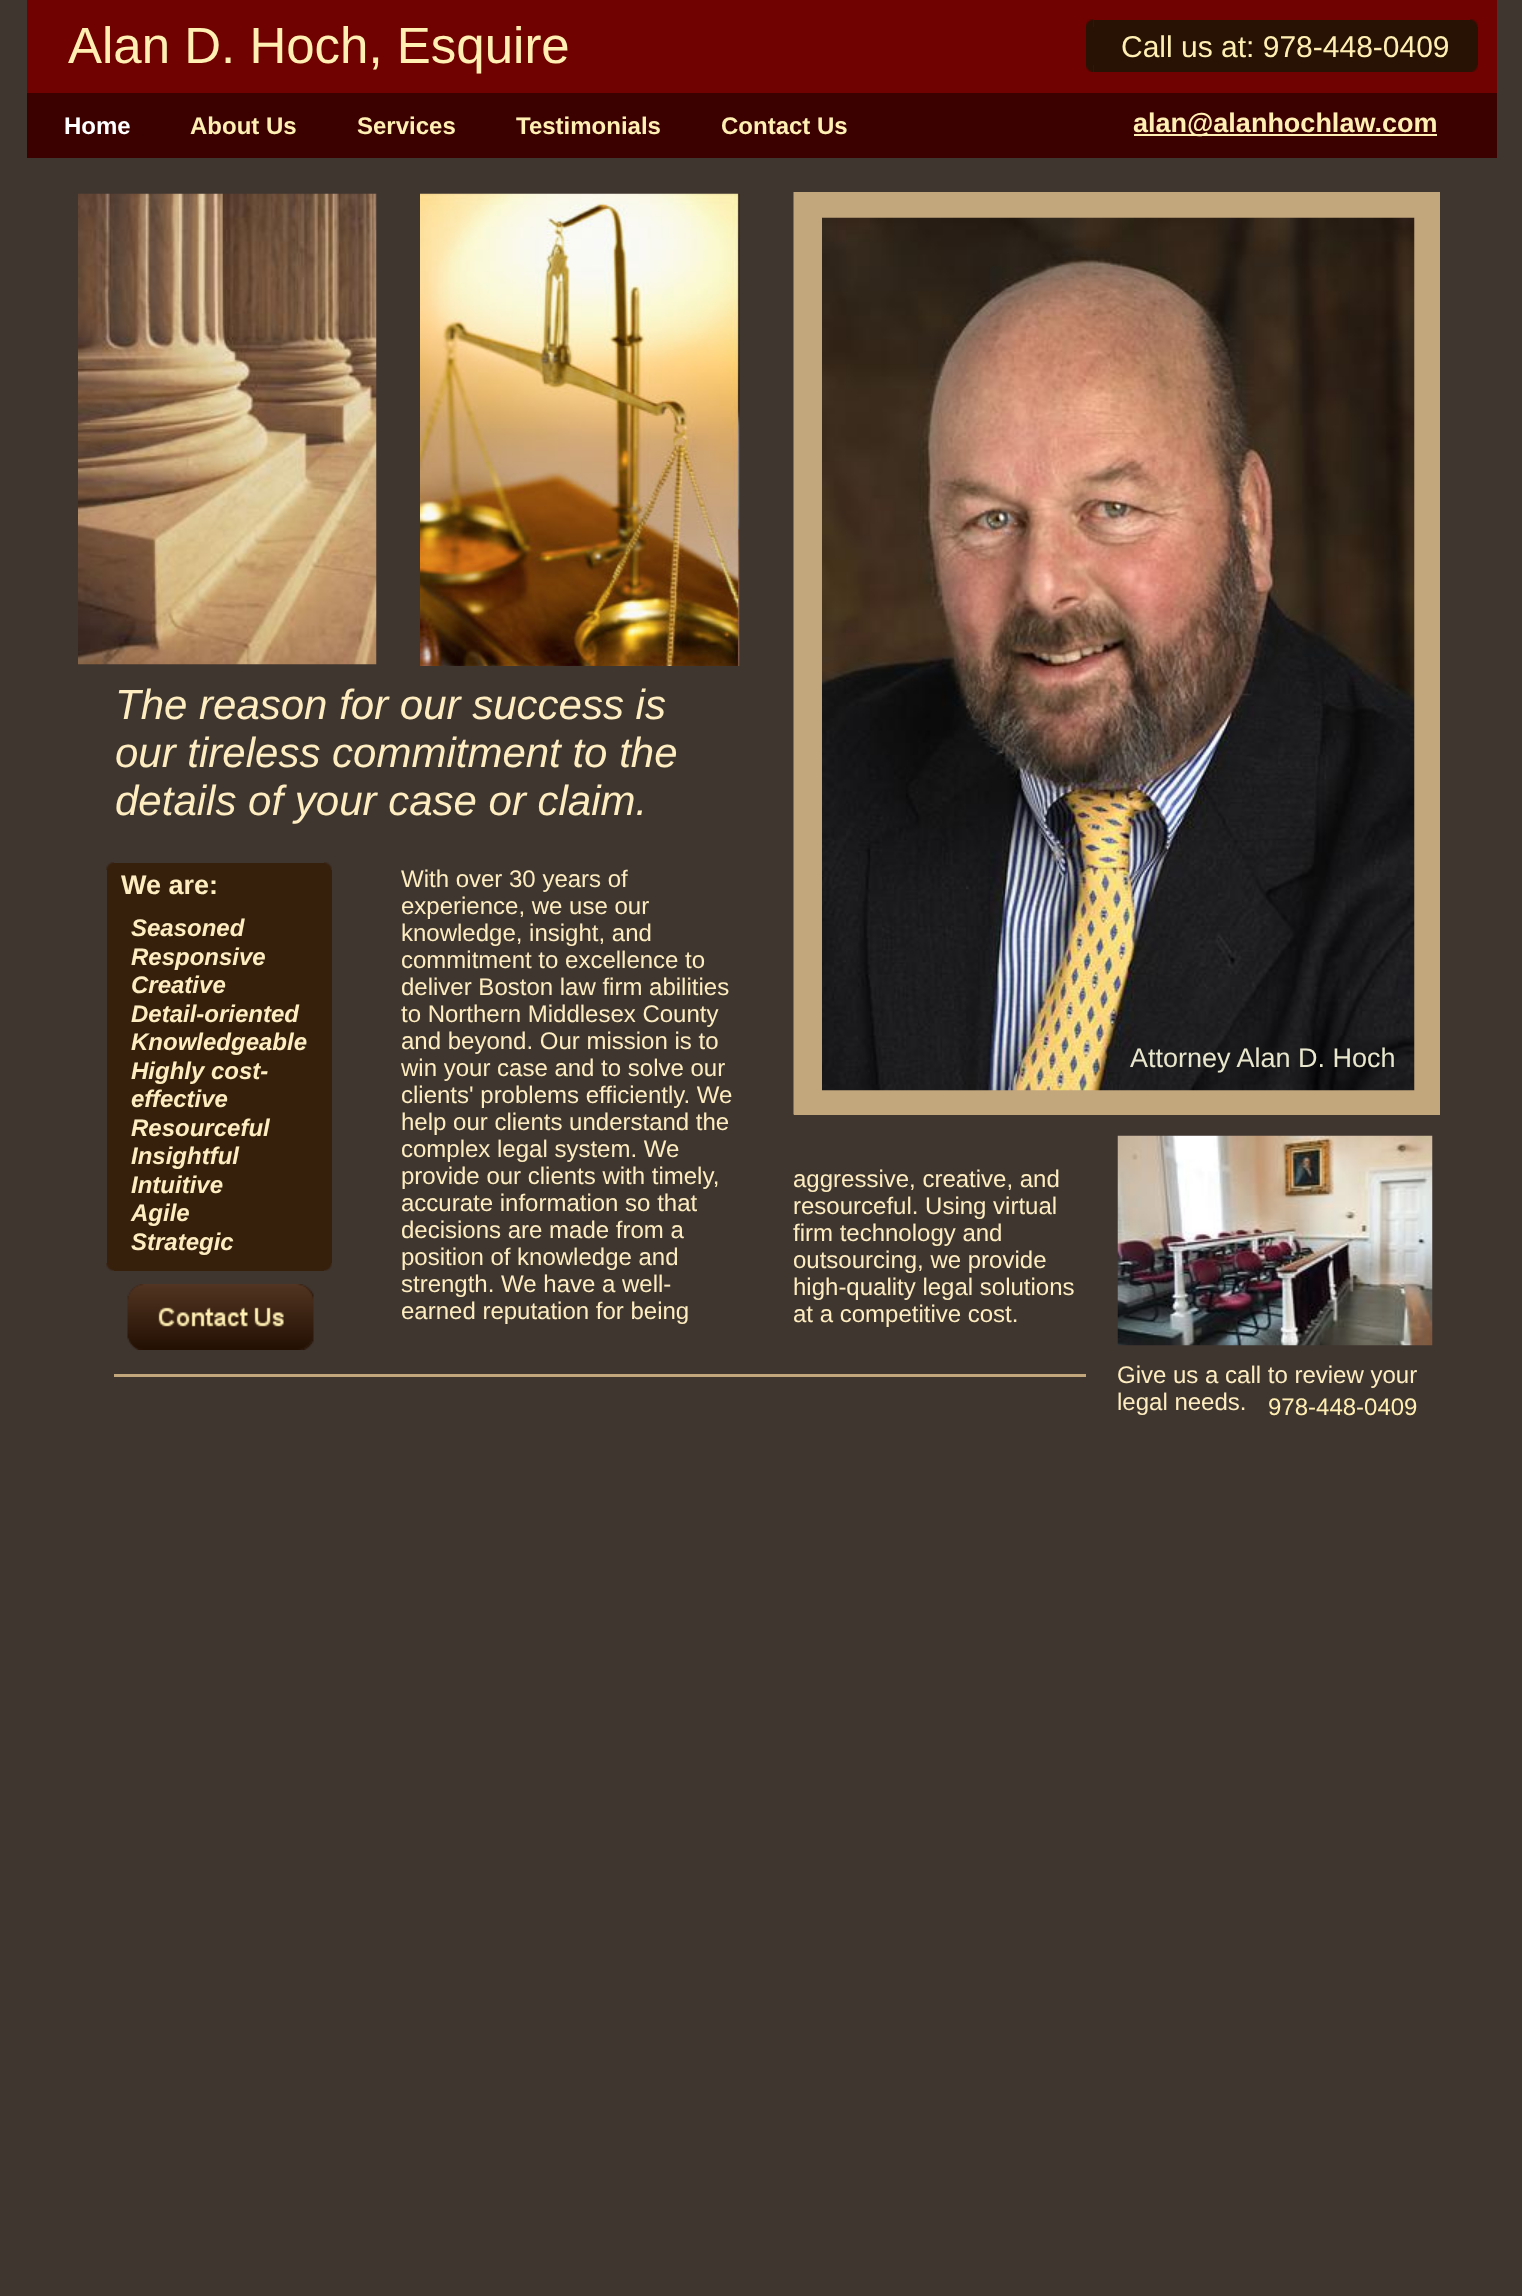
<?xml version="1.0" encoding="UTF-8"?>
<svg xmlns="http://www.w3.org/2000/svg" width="1522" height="2296">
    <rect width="100%" height="100%" fill="#403630"/>
    <rect x="27" y="0" width="1470" height="93" fill="#700201"/>
    <text x="68" y="63" font-family="Liberation Sans" font-size="51" fill="#FFEFB3">Alan D. Hoch, Esquire</text>
    <image x="1086" y="19" width="8" height="8" href="img_01.png"/>
    <rect x="1086" y="27" width="392" height="38" fill="#271204"/>
    <rect x="1094" y="20" width="376" height="52" fill="#271204"/>
    <image x="1470" y="19" width="8" height="8" href="img_02.png"/>
    <image x="1086" y="65" width="8" height="7" href="img_03.png"/>
    <image x="1470" y="65" width="8" height="7" href="img_04.png"/>
    <text x="1121" y="57" font-family="Liberation Sans" font-size="30" fill="#FFEFB3">Call us at: 978-448-0409</text>
    <rect x="27" y="93" width="1470" height="65" fill="#3B0101"/>
    <text x="64" y="134" font-family="Liberation Sans" font-size="24" font-weight="700" fill="#FFFFFF">Home</text>
    <text x="190" y="134" font-family="Liberation Sans" font-size="24" font-weight="700" fill="#FFEFB3">About Us</text>
    <text x="357" y="134" font-family="Liberation Sans" font-size="24" font-weight="700" fill="#FFEFB3">Services</text>
    <text x="516" y="134" font-family="Liberation Sans" font-size="24" font-weight="700" fill="#FFEFB3">Testimonials</text>
    <text x="721" y="134" font-family="Liberation Sans" font-size="24" font-weight="700" fill="#FFEFB3">Contact Us</text>
    <rect x="1134" y="134" width="303" height="2" fill="#FFEFB3"/>
    <text x="1133" y="132" font-family="Liberation Sans" font-size="27" font-weight="700" fill="#FFEFB3">alan@alanhochlaw.com</text>
    <image x="78" y="193" width="299" height="472" href="img_05.png"/>
    <image x="420" y="193" width="320" height="473" href="img_06.png"/>
    <rect x="794" y="192" width="646" height="923" fill="#C2A67C"/>
    <image x="793" y="192" width="1" height="923" href="img_07.png"/>
    <text font-family="Liberation Sans" font-size="42" font-style="italic" fill="#FDEDC0">
        <tspan x="115" y="719">The reason for our success is</tspan>
        <tspan x="115" y="767">our tireless commitment to the</tspan>
        <tspan x="115" y="815">details of your case or claim.</tspan>
    </text>
    <image x="822" y="217" width="593" height="874" href="img_08.png"/>
    <image x="106" y="862" width="8" height="8" href="img_09.png"/>
    <rect x="107" y="870" width="225" height="393" fill="#36200C"/>
    <rect x="114" y="863" width="210" height="408" fill="#36200C"/>
    <image x="324" y="862" width="8" height="8" href="img_10.png"/>
    <image x="106" y="1263" width="8" height="8" href="img_11.png"/>
    <image x="324" y="1263" width="8" height="8" href="img_12.png"/>
    <text font-family="Liberation Sans" font-size="24" fill="#FDEDC0">
        <tspan x="401" y="887">With over 30 years of</tspan>
        <tspan x="401" y="914">experience, we use our</tspan>
        <tspan x="401" y="941">knowledge, insight, and</tspan>
        <tspan x="401" y="968">commitment to excellence to</tspan>
        <tspan x="401" y="995">deliver Boston law firm abilities</tspan>
        <tspan x="401" y="1022">to Northern Middlesex County</tspan>
        <tspan x="401" y="1049">and beyond. Our mission is to</tspan>
        <tspan x="401" y="1076">win your case and to solve our</tspan>
        <tspan x="401" y="1103">clients' problems efficiently. We</tspan>
        <tspan x="401" y="1130">help our clients understand the</tspan>
        <tspan x="401" y="1157">complex legal system. We</tspan>
        <tspan x="401" y="1184">provide our clients with timely,</tspan>
        <tspan x="401" y="1211">accurate information so that</tspan>
        <tspan x="401" y="1238">decisions are made from a</tspan>
        <tspan x="401" y="1265">position of knowledge and</tspan>
        <tspan x="401" y="1292">strength. We have a well-</tspan>
        <tspan x="401" y="1319">earned reputation for being</tspan>
    </text>
    <text x="121" y="894" font-family="Liberation Sans" font-size="27" font-weight="700" fill="#FDEDC0">We are:</text>
    <text font-family="Liberation Sans" font-size="24" font-weight="700" font-style="italic" fill="#FDEDC0">
        <tspan x="131" y="936">Seasoned</tspan>
        <tspan x="131" y="965">Responsive</tspan>
        <tspan x="131" y="993">Creative</tspan>
        <tspan x="131" y="1022">Detail-oriented</tspan>
        <tspan x="131" y="1050">Knowledgeable</tspan>
        <tspan x="131" y="1079">Highly cost-</tspan>
        <tspan x="131" y="1107">effective</tspan>
        <tspan x="131" y="1136">Resourceful</tspan>
        <tspan x="131" y="1164">Insightful</tspan>
        <tspan x="131" y="1193">Intuitive</tspan>
        <tspan x="131" y="1221">Agile</tspan>
        <tspan x="131" y="1250">Strategic</tspan>
    </text>
    <text x="1130" y="1067" font-family="Liberation Sans" font-size="27" fill="#E8E7CE">Attorney Alan D. Hoch</text>
    <image x="127" y="1284" width="187" height="66" href="img_13.png"/>
    <text font-family="Liberation Sans" font-size="24" fill="#FDEDC0">
        <tspan x="793" y="1187">aggressive, creative, and</tspan>
        <tspan x="793" y="1214">resourceful. Using virtual</tspan>
        <tspan x="793" y="1241">firm technology and</tspan>
        <tspan x="793" y="1268">outsourcing, we provide</tspan>
        <tspan x="793" y="1295">high-quality legal solutions</tspan>
        <tspan x="793" y="1322">at a competitive cost.</tspan>
    </text>
    <image x="1117" y="1135" width="316" height="211" href="img_14.png"/>
    <rect x="114" y="1374" width="972" height="3" fill="#C2A67C"/>
    <text font-family="Liberation Sans" font-size="24" fill="#FDEDC0">
        <tspan x="1117" y="1383">Give us a call to review your</tspan>
        <tspan x="1117" y="1410">legal needs.</tspan>
    </text>
    <text x="1268" y="1415" font-family="Liberation Sans" font-size="24" fill="#FFEFB3">978-448-0409</text>
</svg>
